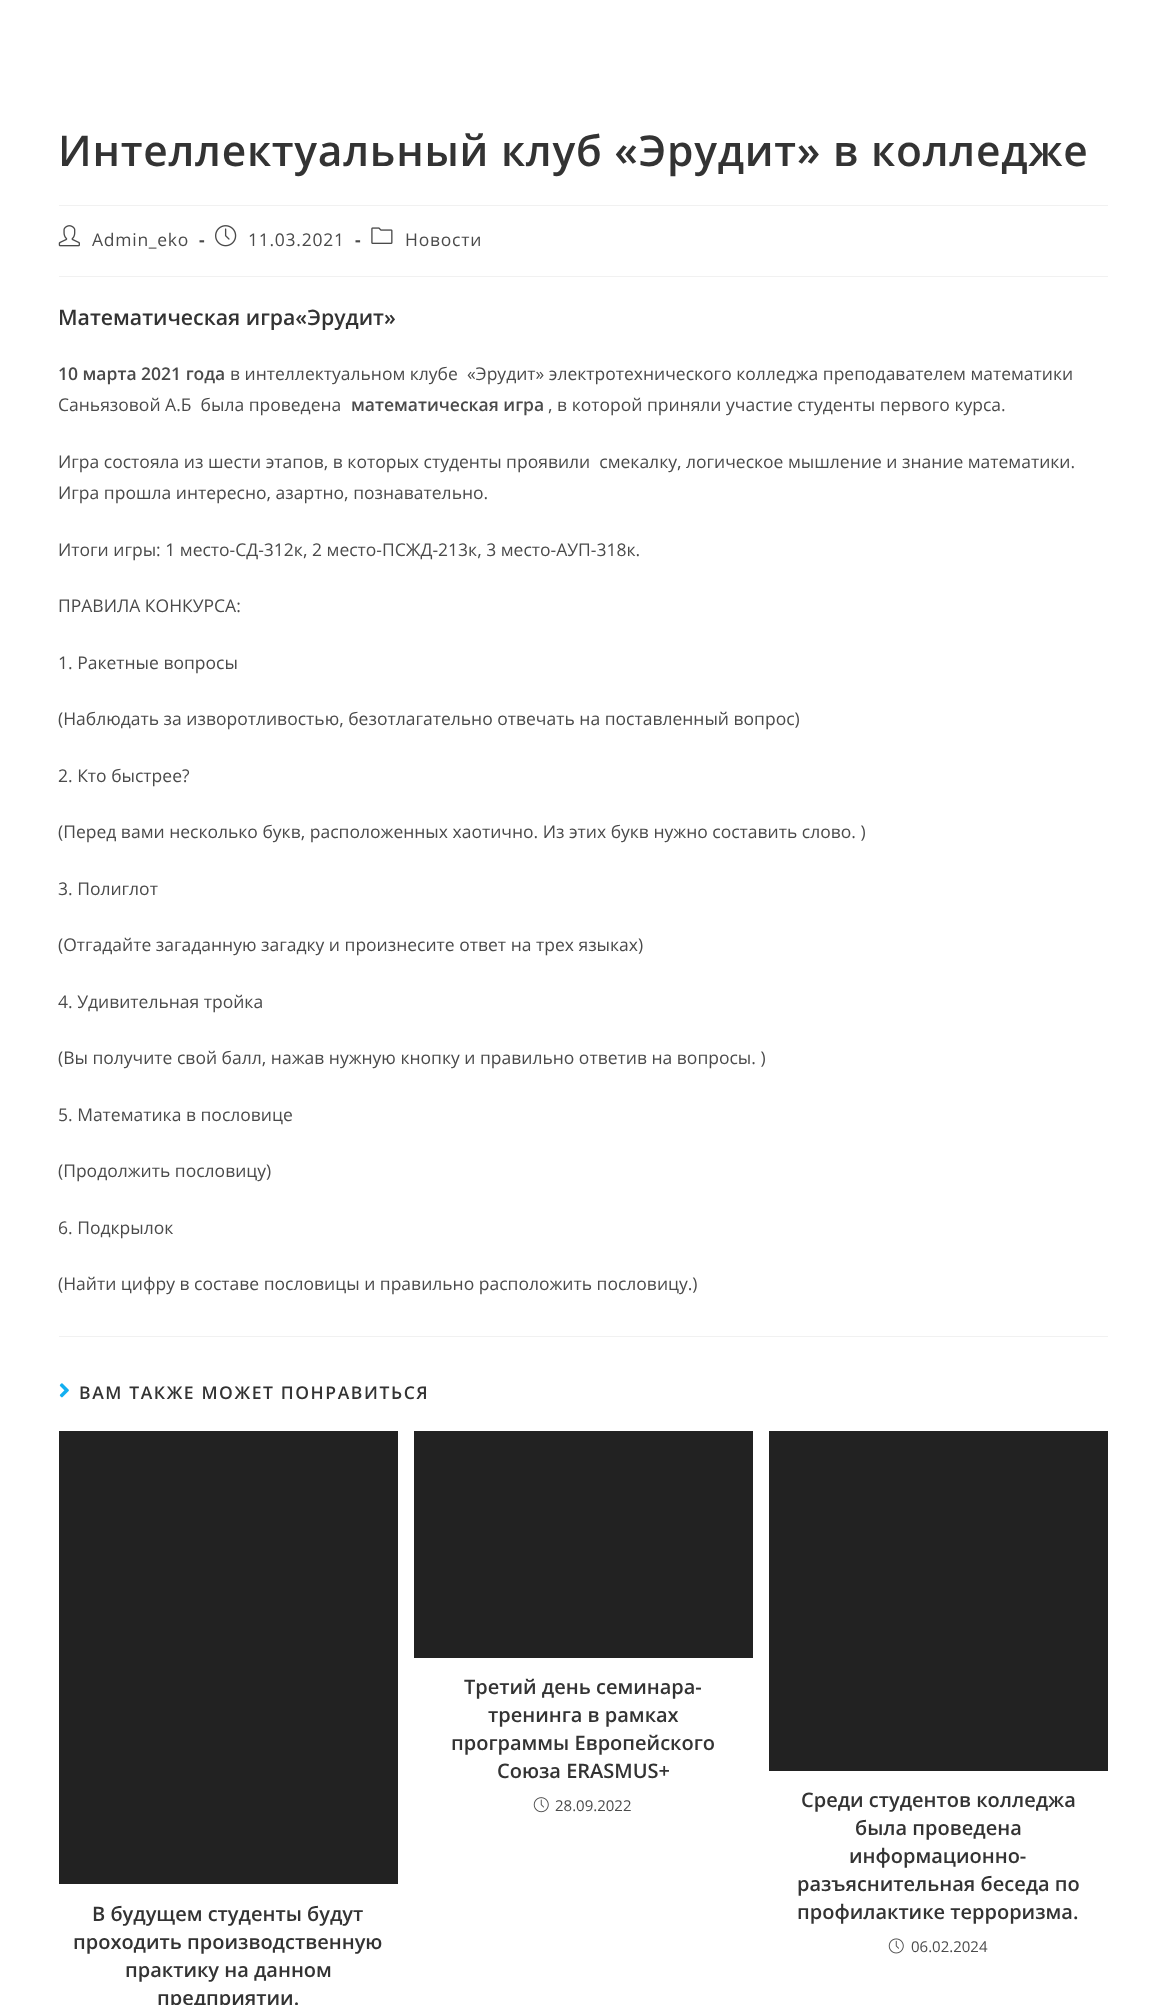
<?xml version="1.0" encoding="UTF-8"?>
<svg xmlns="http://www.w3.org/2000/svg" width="1166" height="2005">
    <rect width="100%" height="100%" fill="#FFFFFF"/>
    <rect x="59" y="205" width="1049" height="1" fill="#F1F1F1"/>
    <text x="58" y="166" font-family="Open Sans" font-size="42.5" font-weight="600" letter-spacing="0.75" fill="#333333">Интеллектуальный клуб «Эрудит» в колледже</text>
    <rect x="59" y="276" width="1049" height="1" fill="#F1F1F1"/>
    <image x="58" y="225" width="22" height="22" href="img_01.png"/>
    <text x="92" y="246" font-family="Open Sans" font-size="17.5" letter-spacing="0.75" fill="#4A4A4A">Admin_eko</text>
    <text x="199" y="246" font-family="Open Sans" font-size="17.5" font-weight="700" letter-spacing="0.75" fill="#4A4A4A">-</text>
    <image x="215" y="225" width="22" height="22" href="img_02.png"/>
    <text x="248" y="246" font-family="Open Sans" font-size="17.5" letter-spacing="0.75" fill="#4A4A4A">11.03.2021</text>
    <text x="355" y="246" font-family="Open Sans" font-size="17.5" font-weight="700" letter-spacing="0.75" fill="#4A4A4A">-</text>
    <image x="371" y="227" width="22" height="17" href="img_03.png"/>
    <text x="405" y="246" font-family="Open Sans" font-size="17.5" letter-spacing="0.75" fill="#4A4A4A">Новости</text>
    <text x="58" y="325" font-family="Open Sans" font-size="21.25" font-weight="600" fill="#333333">Математическая игра«Эрудит»</text>
    <text x="58" y="380" font-family="Open Sans" font-size="17.5" font-weight="600" fill="#4A4A4A">10 марта 2021 года</text>
    <text x="230" y="380" font-family="Open Sans" font-size="17.5" fill="#4A4A4A" xml:space="preserve">в интеллектуальном клубе  «Эрудит» электротехнического колледжа преподавателем математики</text>
    <text x="58" y="411" font-family="Open Sans" font-size="17.5" fill="#4A4A4A" xml:space="preserve">Саньязовой А.Б  была проведена</text>
    <text x="351" y="411" font-family="Open Sans" font-size="17.5" font-weight="600" fill="#4A4A4A">математическая игра</text>
    <text x="548" y="411" font-family="Open Sans" font-size="17.5" fill="#4A4A4A">, в которой приняли участие студенты первого курса.</text>
    <text font-family="Open Sans" font-size="17.5" fill="#4A4A4A" xml:space="preserve"><tspan x="58" y="468">Игра состояла из шести этапов, в которых студенты проявили  смекалку, логическое мышление и знание математики.</tspan><tspan x="58" y="499">Игра прошла интересно, азартно, познавательно.</tspan></text>
    <text x="58" y="556" font-family="Open Sans" font-size="17.5" fill="#4A4A4A">Итоги игры: 1 место-СД-312к, 2 место-ПСЖД-213к, 3 место-АУП-318к.</text>
    <text x="58" y="612" font-family="Open Sans" font-size="17.5" fill="#4A4A4A">ПРАВИЛА КОНКУРСА:</text>
    <text x="58" y="669" font-family="Open Sans" font-size="17.5" fill="#4A4A4A">1. Ракетные вопросы</text>
    <text x="58" y="725" font-family="Open Sans" font-size="17.5" fill="#4A4A4A">(Наблюдать за изворотливостью, безотлагательно отвечать на поставленный вопрос)</text>
    <text x="58" y="782" font-family="Open Sans" font-size="17.5" fill="#4A4A4A">2. Кто быстрее?</text>
    <text x="58" y="838" font-family="Open Sans" font-size="17.5" fill="#4A4A4A">(Перед вами несколько букв, расположенных хаотично. Из этих букв нужно составить слово. )</text>
    <text x="58" y="895" font-family="Open Sans" font-size="17.5" fill="#4A4A4A">3. Полиглот</text>
    <text x="58" y="951" font-family="Open Sans" font-size="17.5" fill="#4A4A4A">(Отгадайте загаданную загадку и произнесите ответ на трех языках)</text>
    <text x="58" y="1008" font-family="Open Sans" font-size="17.5" fill="#4A4A4A">4. Удивительная тройка</text>
    <text x="58" y="1064" font-family="Open Sans" font-size="17.5" fill="#4A4A4A">(Вы получите свой балл, нажав нужную кнопку и правильно ответив на вопросы. )</text>
    <text x="58" y="1121" font-family="Open Sans" font-size="17.5" fill="#4A4A4A">5. Математика в пословице</text>
    <text x="58" y="1177" font-family="Open Sans" font-size="17.5" fill="#4A4A4A">(Продолжить пословицу)</text>
    <text x="58" y="1234" font-family="Open Sans" font-size="17.5" fill="#4A4A4A">6. Подкрылок</text>
    <text x="58" y="1290" font-family="Open Sans" font-size="17.5" fill="#4A4A4A">(Найти цифру в составе пословицы и правильно расположить пословицу.)</text>
    <rect x="59" y="1336" width="1049" height="1" fill="#F1F1F1"/>
    <image x="59" y="1383" width="10" height="15" href="img_04.png"/>
    <text x="79" y="1399" font-family="Open Sans" font-size="17.5" font-weight="600" letter-spacing="1.6" fill="#333333">ВАМ ТАКЖЕ МОЖЕТ ПОНРАВИТЬСЯ</text>
    <rect x="414" y="1431" width="339" height="227" fill="#222222"/>
    <text x="464" y="1694" font-family="Open Sans" font-size="20" font-weight="600" fill="#333333">Третий день семинара-</text>
    <text x="488" y="1722" font-family="Open Sans" font-size="20" font-weight="600" fill="#333333">тренинга в рамках</text>
    <text x="451" y="1750" font-family="Open Sans" font-size="20" font-weight="600" fill="#333333">программы Европейского</text>
    <text x="497" y="1778" font-family="Open Sans" font-size="20" font-weight="600" fill="#333333">Союза ERASMUS+</text>
    <image x="533" y="1797" width="16" height="16" href="img_05.png"/>
    <text x="555" y="1811" font-family="Open Sans" font-size="15" fill="#4A4A4A">28.09.2022</text>
    <rect x="59" y="1431" width="339" height="453" fill="#222222"/>
    <text x="92" y="1921" font-family="Open Sans" font-size="20" font-weight="600" fill="#333333">В будущем студенты будут</text>
    <text x="73" y="1949" font-family="Open Sans" font-size="20" font-weight="600" fill="#333333">проходить производственную</text>
    <text x="125" y="1977" font-family="Open Sans" font-size="20" font-weight="600" fill="#333333">практику на данном</text>
    <text x="157" y="2005" font-family="Open Sans" font-size="20" font-weight="600" fill="#333333">предприятии.</text>
    <rect x="769" y="1431" width="339" height="340" fill="#222222"/>
    <text x="801" y="1807" font-family="Open Sans" font-size="20" font-weight="600" fill="#333333">Среди студентов колледжа</text>
    <text x="855" y="1835" font-family="Open Sans" font-size="20" font-weight="600" fill="#333333">была проведена</text>
    <text x="849" y="1863" font-family="Open Sans" font-size="20" font-weight="600" fill="#333333">информационно-</text>
    <text font-family="Open Sans" font-size="20" font-weight="600" fill="#333333">
        <tspan x="797" y="1891">разъяснительная беседа по</tspan>
        <tspan x="797" y="1919">профилактике терроризма.</tspan>
    </text>
    <image x="888" y="1938" width="16" height="16" href="img_06.png"/>
    <text x="911" y="1952" font-family="Open Sans" font-size="15" fill="#4A4A4A">06.02.2024</text>
</svg>
